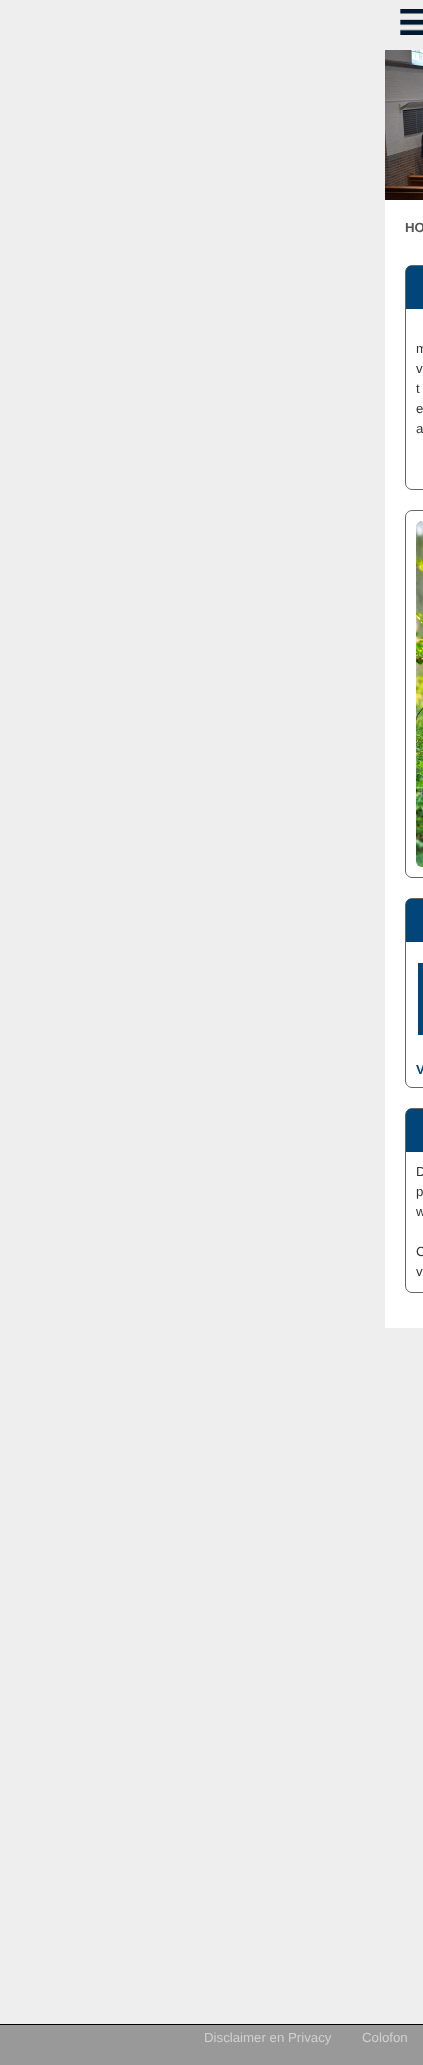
<?xml version="1.0" encoding="UTF-8"?>
<svg xmlns="http://www.w3.org/2000/svg" width="423" height="2065">
    <rect width="100%" height="100%" fill="#EEEEEE"/>
    <image x="400" y="9" width="23" height="26" href="img_01.png"/>
    <image x="385" y="50" width="38" height="150" href="img_02.png"/>
    <rect x="385" y="200" width="38" height="1128" fill="#FFFFFF"/>
    <text x="405" y="232" font-family="Liberation Sans" font-size="13.25" font-weight="700" fill="#555555">HO</text>
    <rect x="405.5" y="265.5" width="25" height="224" rx="6.5" fill="none" stroke="#666666"/>
    <path d="M 411 266 H 423 C 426 266 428 268 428 271 V 309 H 406 V 271 C 406 268 408 266 411 266 Z" fill="#024579"/>
    <text font-family="Liberation Sans" font-size="13.25" fill="#333333">
        <tspan x="416" y="353">m</tspan>
        <tspan x="416" y="373">v</tspan>
        <tspan x="416" y="393">t</tspan>
        <tspan x="416" y="413">e</tspan>
        <tspan x="416" y="433">a</tspan>
    </text>
    <rect x="405.5" y="510.5" width="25" height="367" rx="6.5" fill="none" stroke="#666666"/>
    <image x="416" y="521" width="7" height="346" href="img_03.png"/>
    <rect x="405.5" y="898.5" width="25" height="189" rx="6.5" fill="none" stroke="#666666"/>
    <path d="M 411 899 H 423 C 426 899 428 901 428 904 V 942 H 406 V 904 C 406 901 408 899 411 899 Z" fill="#024579"/>
    <rect x="418" y="963" width="5" height="72" fill="#024579"/>
    <text x="416" y="1074" font-family="Liberation Sans" font-size="13.25" font-weight="700" fill="#024579">V</text>
    <rect x="405.5" y="1108.5" width="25" height="184" rx="6.5" fill="none" stroke="#666666"/>
    <path d="M 411 1109 H 423 C 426 1109 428 1111 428 1114 V 1152 H 406 V 1114 C 406 1111 408 1109 411 1109 Z" fill="#024579"/>
    <text font-family="Liberation Sans" font-size="13.25" fill="#333333">
        <tspan x="416" y="1176">D</tspan>
        <tspan x="416" y="1196">p</tspan>
        <tspan x="416" y="1216">w</tspan>
    </text>
    <text font-family="Liberation Sans" font-size="13.25" fill="#333333">
        <tspan x="416" y="1256">C</tspan>
        <tspan x="416" y="1276">v</tspan>
    </text>
    <rect x="0" y="2025" width="423" height="40" fill="#999999"/>
    <rect x="0" y="2024" width="423" height="1" fill="#000000"/>
    <text x="204" y="2042" font-family="Liberation Sans" font-size="13.25" fill="#D0D0D0">Disclaimer en Privacy</text>
    <text x="362" y="2042" font-family="Liberation Sans" font-size="13.25" fill="#D0D0D0">Colofon</text>
</svg>
